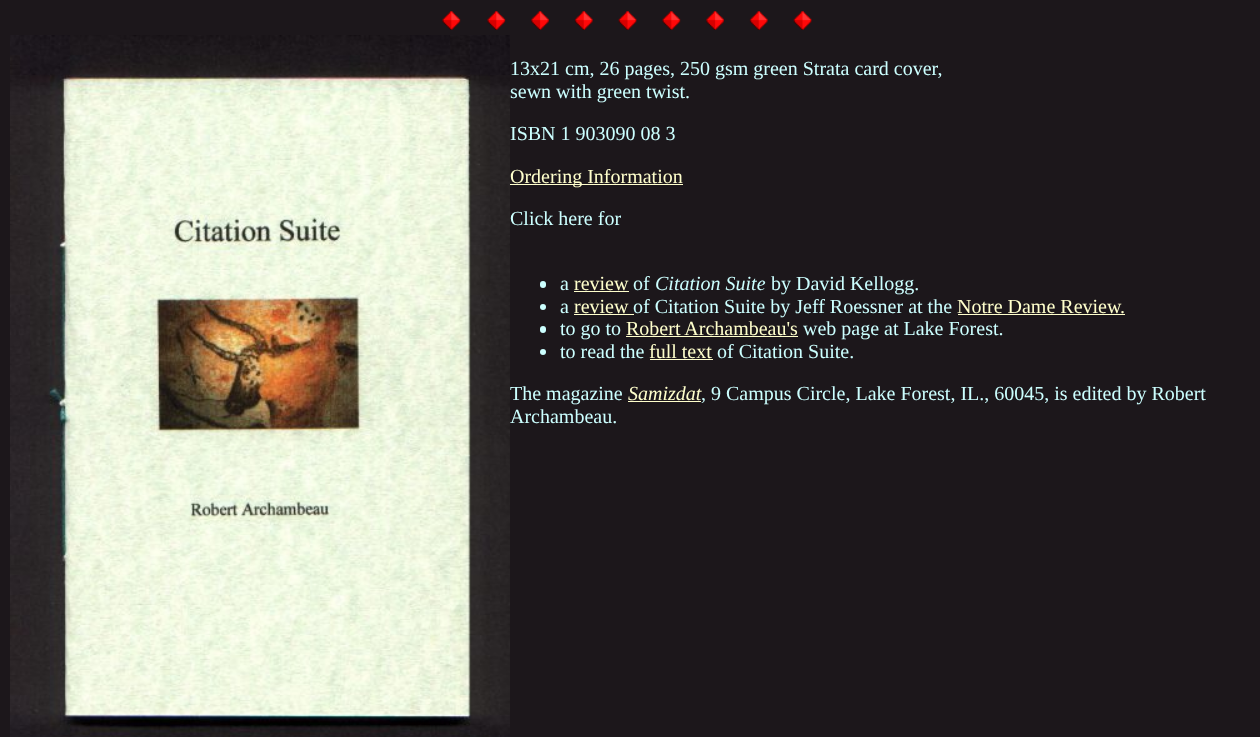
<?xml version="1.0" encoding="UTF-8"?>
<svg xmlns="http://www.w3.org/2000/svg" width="1260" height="737">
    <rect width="100%" height="100%" fill="#1C171B"/>
    <image x="442" y="11" width="370" height="19" href="img_01.png"/>
    <image x="10" y="35" width="500" height="702" href="img_02.png"/>
    <text font-family="Liberation Serif" font-size="20" fill="#CCFFFF">
        <tspan x="510" y="75">13x21 cm, 26 pages, 250 gsm green Strata card cover,</tspan>
        <tspan x="510" y="98">sewn with green twist.</tspan>
    </text>
    <text x="510" y="140" font-family="Liberation Serif" font-size="20" fill="#CCFFFF">ISBN 1 903090 08 3</text>
    <rect x="510" y="184" width="173" height="1" fill="#FFFFCC"/>
    <text x="510" y="183" font-family="Liberation Serif" font-size="20" fill="#FFFFCC">Ordering Information</text>
    <text x="510" y="225" font-family="Liberation Serif" font-size="20" fill="#CCFFFF">Click here for</text>
    <rect x="540" y="281" width="6" height="7" rx="3" fill="#CCFFFF"/>
    <text x="560" y="290" font-family="Liberation Serif" font-size="20" fill="#CCFFFF">a</text>
    <text x="574" y="290" font-family="Liberation Serif" font-size="20" fill="#FFFFCC">review</text>
    <rect x="574" y="291" width="55" height="1" fill="#FFFFCC"/>
    <text x="633" y="290" font-family="Liberation Serif" font-size="20" fill="#CCFFFF">of</text>
    <text x="655" y="290" font-family="Liberation Serif" font-size="20" font-style="italic" fill="#CCFFFF">Citation Suite</text>
    <text x="771" y="290" font-family="Liberation Serif" font-size="20" fill="#CCFFFF">by David Kellogg.</text>
    <circle cx="543" cy="307" r="3" fill="#CCFFFF"/>
    <text x="560" y="313" font-family="Liberation Serif" font-size="20" fill="#CCFFFF">a</text>
    <text x="574" y="313" font-family="Liberation Serif" font-size="20" fill="#FFFFCC">review</text>
    <rect x="574" y="314" width="60" height="1" fill="#FFFFCC"/>
    <text x="633" y="313" font-family="Liberation Serif" font-size="20" fill="#CCFFFF">of Citation Suite by Jeff Roessner at the</text>
    <text x="957" y="313" font-family="Liberation Serif" font-size="20" fill="#FFFFCC">Notre Dame Review.</text>
    <rect x="958" y="314" width="167" height="1" fill="#FFFFCC"/>
    <rect x="540" y="326" width="6" height="7" rx="3" fill="#CCFFFF"/>
    <text x="560" y="335" font-family="Liberation Serif" font-size="20" fill="#CCFFFF">to go to</text>
    <text x="626" y="335" font-family="Liberation Serif" font-size="20" fill="#FFFFCC">Robert Archambeau's</text>
    <rect x="626" y="336" width="172" height="1" fill="#FFFFCC"/>
    <text x="803" y="335" font-family="Liberation Serif" font-size="20" fill="#CCFFFF">web page at Lake Forest.</text>
    <circle cx="543" cy="352" r="3" fill="#CCFFFF"/>
    <text x="560" y="358" font-family="Liberation Serif" font-size="20" fill="#CCFFFF">to read the</text>
    <text x="649" y="358" font-family="Liberation Serif" font-size="20" fill="#FFFFCC">full text</text>
    <rect x="650" y="359" width="63" height="1" fill="#FFFFCC"/>
    <text x="717" y="358" font-family="Liberation Serif" font-size="20" fill="#CCFFFF">of Citation Suite.</text>
    <text x="510" y="400" font-family="Liberation Serif" font-size="20" fill="#CCFFFF">The magazine</text>
    <text x="628" y="400" font-family="Liberation Serif" font-size="20" font-style="italic" fill="#FFFFCC">Samizdat</text>
    <rect x="628" y="401" width="73" height="1" fill="#FFFFCC"/>
    <text x="701" y="400" font-family="Liberation Serif" font-size="20" fill="#CCFFFF">, 9 Campus Circle, Lake Forest, IL., 60045, is edited by Robert</text>
    <text x="510" y="423" font-family="Liberation Serif" font-size="20" fill="#CCFFFF">Archambeau.</text>
</svg>
